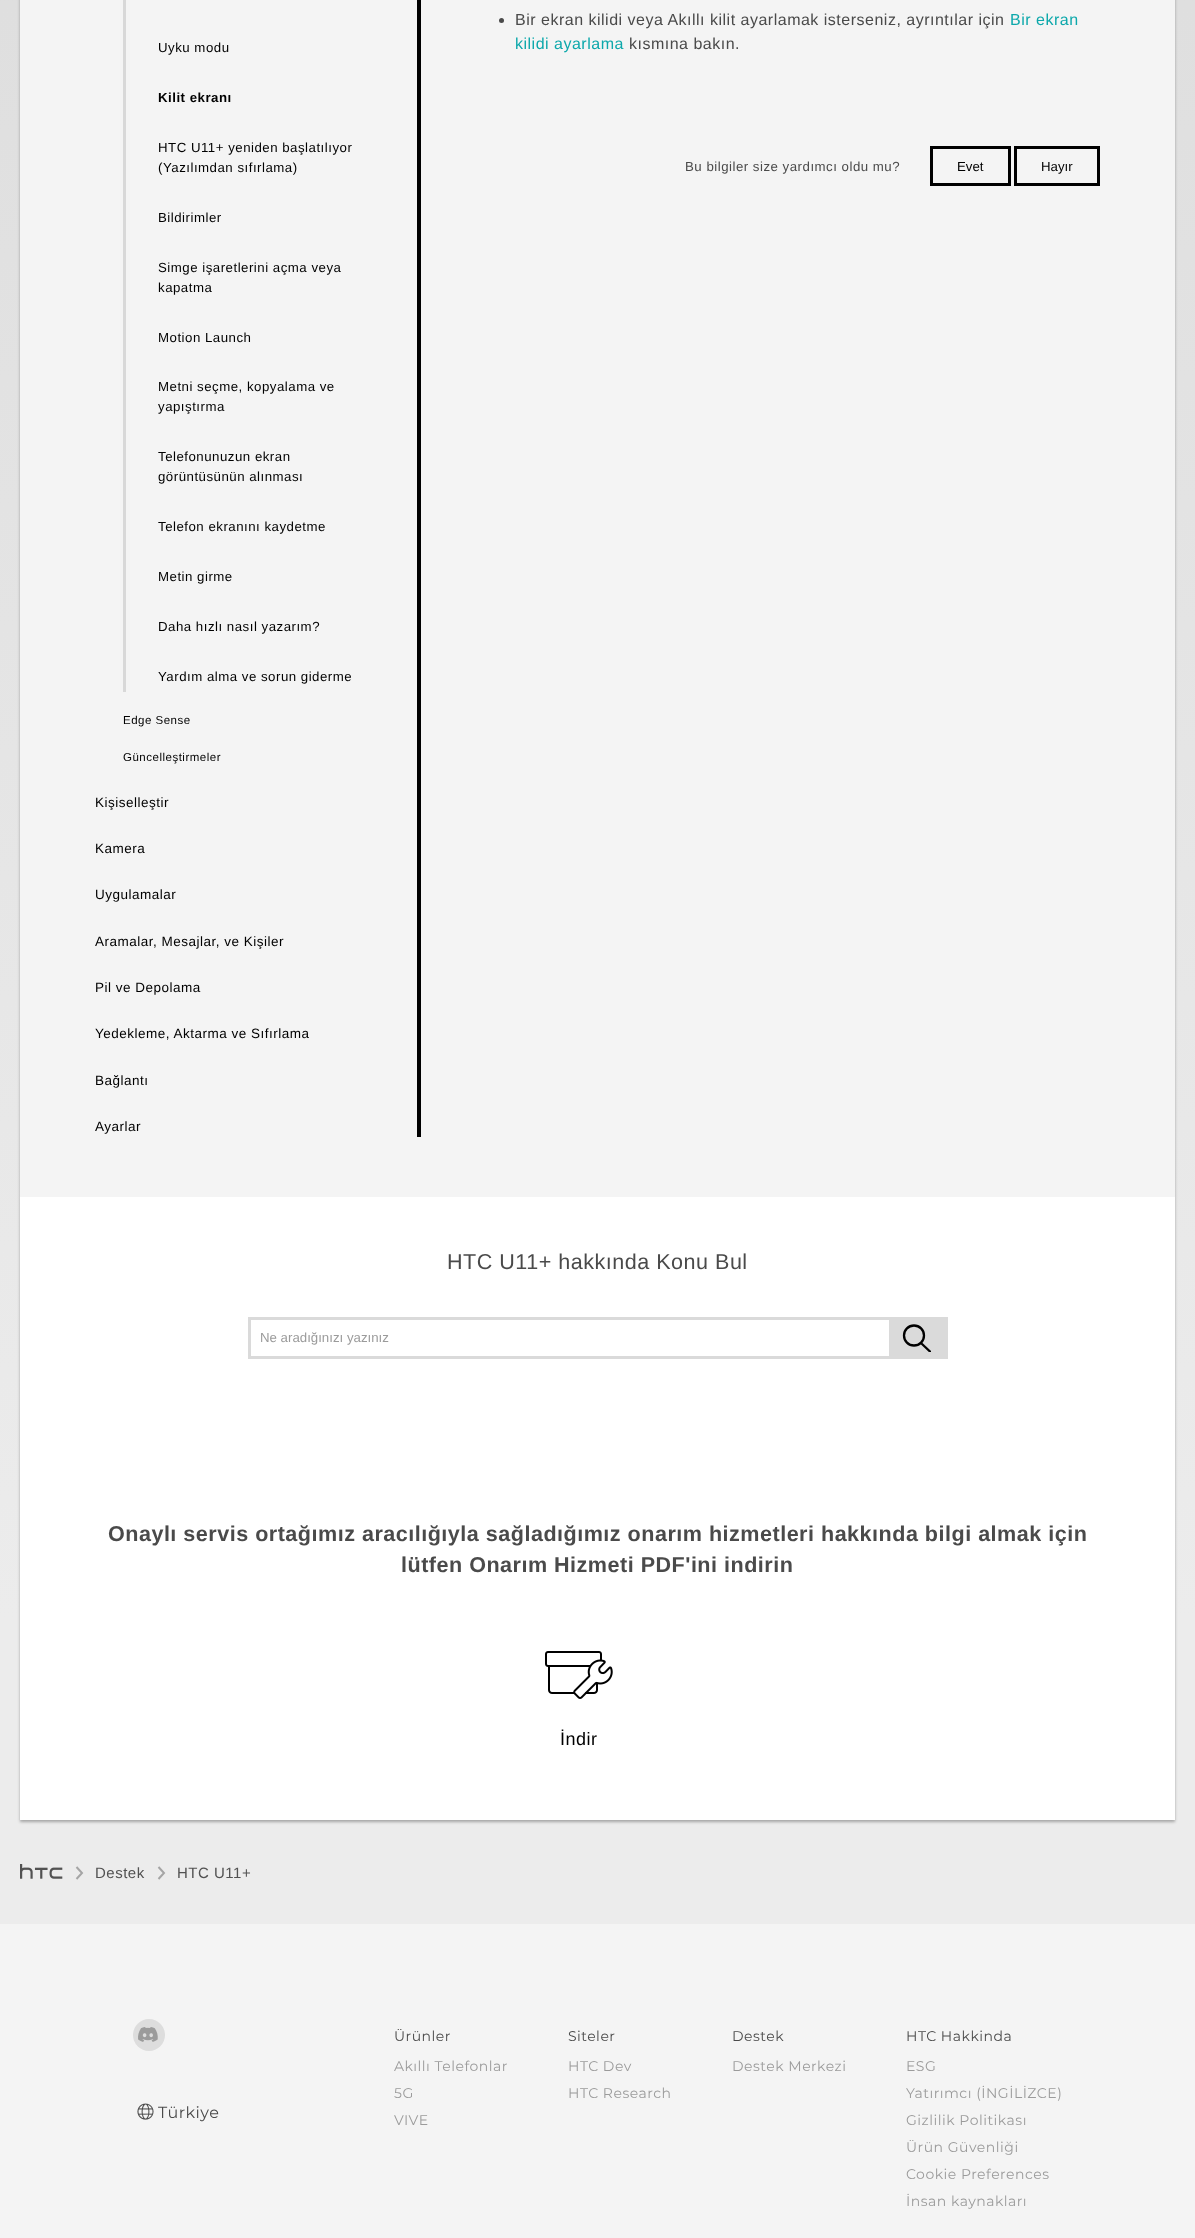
<?xml version="1.0" encoding="UTF-8"?>
<svg xmlns="http://www.w3.org/2000/svg" width="1195" height="2238">
    <defs>
        <linearGradient id="g1" gradientUnits="userSpaceOnUse" x1="597" y1="-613" x2="598" y2="1924"><stop offset="0" stop-color="#DADADA"/><stop offset="0.88" stop-color="#ECECEC"/><stop offset="1" stop-color="#ECECEC"/></linearGradient>
        <filter id="blur1" x="-50%" y="-200%" width="200%" height="500%"><feGaussianBlur stdDeviation="1.5"/></filter>
        <clipPath id="clip1"><rect x="903" y="1324" width="28" height="28"/></clipPath>
    </defs>
    <rect width="100%" height="100%" fill="#F4F4F4"/>
    <rect x="0" y="0" width="1195" height="1924" fill="url(#g1)"/>
    <rect x="20" y="-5" width="1155" height="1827" fill="#000000" fill-opacity="0.3" filter="url(#blur1)"/>
    <rect x="20" y="1197" width="1155" height="623" fill="#FFFFFF"/>
    <rect x="20" y="0" width="1155" height="1197" fill="#F4F4F4"/>
    <rect x="123" y="0" width="3" height="692" fill="#D8D8D8"/>
    <text x="158" y="52" font-family="Liberation Sans" font-size="13.25" letter-spacing="0.5" fill="#000000">Uyku modu</text>
    <text x="158" y="102" font-family="Liberation Sans" font-size="13.25" font-weight="700" letter-spacing="0.5" fill="#000000">Kilit ekranı</text>
    <text font-family="Liberation Sans" font-size="13.25" letter-spacing="0.5" fill="#000000">
        <tspan x="158" y="152">HTC U11‍+ yeniden başlatılıyor</tspan>
        <tspan x="158" y="172">(Yazılımdan sıfırlama)</tspan>
    </text>
    <text x="158" y="222" font-family="Liberation Sans" font-size="13.25" letter-spacing="0.5" fill="#000000">Bildirimler</text>
    <text font-family="Liberation Sans" font-size="13.25" letter-spacing="0.5" fill="#000000">
        <tspan x="158" y="272">Simge işaretlerini açma veya</tspan>
        <tspan x="158" y="292">kapatma</tspan>
    </text>
    <text x="158" y="342" font-family="Liberation Sans" font-size="13.25" letter-spacing="0.5" fill="#000000">Motion Launch</text>
    <text font-family="Liberation Sans" font-size="13.25" letter-spacing="0.5" fill="#000000">
        <tspan x="158" y="391">Metni seçme, kopyalama ve</tspan>
        <tspan x="158" y="411">yapıştırma</tspan>
    </text>
    <text font-family="Liberation Sans" font-size="13.25" letter-spacing="0.5" fill="#000000">
        <tspan x="158" y="461">Telefonunuzun ekran</tspan>
        <tspan x="158" y="481">görüntüsünün alınması</tspan>
    </text>
    <text x="158" y="531" font-family="Liberation Sans" font-size="13.25" letter-spacing="0.5" fill="#000000">Telefon ekranını kaydetme</text>
    <text x="158" y="581" font-family="Liberation Sans" font-size="13.25" letter-spacing="0.5" fill="#000000">Metin girme</text>
    <text x="158" y="631" font-family="Liberation Sans" font-size="13.25" letter-spacing="0.5" fill="#000000">Daha hızlı nasıl yazarım?</text>
    <text x="158" y="681" font-family="Liberation Sans" font-size="13.25" letter-spacing="0.5" fill="#000000">Yardım alma ve sorun giderme</text>
    <text x="123" y="724" font-family="Liberation Sans" font-size="11.5" letter-spacing="0.5" fill="#000000">Edge Sense</text>
    <text x="123" y="761" font-family="Liberation Sans" font-size="11.5" letter-spacing="0.5" fill="#000000">Güncelleştirmeler</text>
    <text x="95" y="807" font-family="Liberation Sans" font-size="13.5" letter-spacing="0.5" fill="#000000">Kişiselleştir</text>
    <text x="95" y="853" font-family="Liberation Sans" font-size="13.5" letter-spacing="0.5" fill="#000000">Kamera</text>
    <text x="95" y="899" font-family="Liberation Sans" font-size="13.5" letter-spacing="0.5" fill="#000000">Uygulamalar</text>
    <text x="95" y="946" font-family="Liberation Sans" font-size="13.5" letter-spacing="0.5" fill="#000000">Aramalar, Mesajlar, ve Kişiler</text>
    <text x="95" y="992" font-family="Liberation Sans" font-size="13.5" letter-spacing="0.5" fill="#000000">Pil ve Depolama</text>
    <text x="95" y="1038" font-family="Liberation Sans" font-size="13.5" letter-spacing="0.5" fill="#000000">Yedekleme, Aktarma ve Sıfırlama</text>
    <text x="95" y="1085" font-family="Liberation Sans" font-size="13.5" letter-spacing="0.5" fill="#000000">Bağlantı</text>
    <text x="95" y="1131" font-family="Liberation Sans" font-size="13.5" letter-spacing="0.5" fill="#000000">Ayarlar</text>
    <rect x="417" y="0" width="4" height="1137" fill="#000000"/>
    <circle cx="501.5" cy="20.5" r="2.5" fill="#4A4A4A"/>
    <text x="515" y="25" font-family="Liberation Sans" font-size="16" letter-spacing="0.5" fill="#4A4A4A">Bir ekran kilidi veya Akıllı kilit ayarlamak isterseniz, ayrıntılar için</text>
    <text x="1010" y="25" font-family="Liberation Sans" font-size="16" letter-spacing="0.5" fill="#0DA8AB">Bir ekran</text>
    <text x="515" y="49" font-family="Liberation Sans" font-size="16" letter-spacing="0.5" fill="#0DA8AB">kilidi ayarlama</text>
    <text x="629" y="49" font-family="Liberation Sans" font-size="16" letter-spacing="0.5" fill="#4A4A4A">kısmına bakın.</text>
    <text x="685" y="171" font-family="Liberation Sans" font-size="13.25" letter-spacing="0.5" fill="#4A4A4A">Bu bilgiler size yardımcı oldu mu?</text>
    <rect x="931.5" y="147.5" width="78" height="37" fill="none" stroke="#000000" stroke-width="3"/>
    <text x="957" y="171" font-family="Liberation Sans" font-size="13.25" fill="#000000">Evet</text>
    <rect x="1015.5" y="147.5" width="83" height="37" fill="none" stroke="#000000" stroke-width="3"/>
    <text x="1041" y="171" font-family="Liberation Sans" font-size="13.25" fill="#000000">Hayır</text>
    <text x="447" y="1269" font-family="Liberation Sans" font-size="21.55" letter-spacing="0.5" fill="#4A4A4A">HTC U11+ hakkında Konu Bul</text>
    <rect x="249.5" y="1318.5" width="697" height="39" fill="none" stroke="#DADADA" stroke-width="3"/>
    <text x="260" y="1342" font-family="Liberation Sans" font-size="13.25" fill="#9B9B9B">Ne aradığınızı yazınız</text>
    <rect x="889" y="1320" width="56" height="36" fill="#DADADA"/>
    <circle cx="914" cy="1335.5" r="10" fill="none" stroke="#000000" stroke-width="2.3"/>
    <g clip-path="url(#clip1)">
        <path d="M 922 1344 L 930 1351.5" fill="none" stroke="#000000" stroke-width="2.3" stroke-linecap="round"/>
    </g>
    <text x="108" y="1541" font-family="Liberation Sans" font-size="21.55" font-weight="700" letter-spacing="0.5" fill="#4A4A4A">Onaylı servis ortağımız aracılığıyla sağladığımız onarım hizmetleri hakkında bilgi almak için</text>
    <text x="401" y="1572" font-family="Liberation Sans" font-size="21.55" font-weight="700" letter-spacing="0.5" fill="#4A4A4A">lütfen Onarım Hizmeti PDF'ini indirin</text>
    <image x="545" y="1651" width="68" height="48" href="img_01.png"/>
    <text x="560" y="1745" font-family="Liberation Sans" font-size="18" letter-spacing="0.5" fill="#000000">İndir</text>
    <image x="20" y="1864" width="43" height="15" href="img_02.png"/>
    <path d="M 76.5 1867 L 82 1873 L 76.5 1879" fill="none" stroke="#A5A5A5" stroke-width="2"/>
    <text x="95" y="1878" font-family="Liberation Sans" font-size="15" letter-spacing="0.5" fill="#525252">Destek</text>
    <path d="M 158.5 1867 L 164 1873 L 158.5 1879" fill="none" stroke="#A5A5A5" stroke-width="2"/>
    <text x="177" y="1878" font-family="Liberation Sans" font-size="15" letter-spacing="0.5" fill="#525252">HTC U11+</text>
    <circle cx="149" cy="2035" r="16" fill="#DDDDDD"/>
    <image x="138" y="2027" width="20" height="15" href="img_03.png"/>
    <image x="137" y="2103" width="17" height="17" href="img_04.png"/>
    <text x="158" y="2118" font-family="Montserrat" font-size="16" letter-spacing="0.5" fill="#4A4A4A">Türkiye</text>
    <text x="394" y="2041" font-family="Montserrat" font-size="14" letter-spacing="0.5" fill="#4A4A4A">Ürünler</text>
    <text font-family="Montserrat" font-size="14" letter-spacing="0.5" fill="#9B9B9B">
        <tspan x="394" y="2071">Akıllı Telefonlar</tspan>
        <tspan x="394" y="2098">5G</tspan>
        <tspan x="394" y="2125">VIVE</tspan>
    </text>
    <text x="568" y="2041" font-family="Montserrat" font-size="14" letter-spacing="0.5" fill="#4A4A4A">Siteler</text>
    <text font-family="Montserrat" font-size="14" letter-spacing="0.5" fill="#9B9B9B">
        <tspan x="568" y="2071">HTC Dev</tspan>
        <tspan x="568" y="2098">HTC Research</tspan>
    </text>
    <text x="732" y="2041" font-family="Montserrat" font-size="14" letter-spacing="0.5" fill="#4A4A4A">Destek</text>
    <text x="732" y="2071" font-family="Montserrat" font-size="14" letter-spacing="0.5" fill="#9B9B9B">Destek Merkezi</text>
    <text x="906" y="2041" font-family="Montserrat" font-size="14" letter-spacing="0.5" fill="#4A4A4A">HTC Hakkinda</text>
    <text font-family="Montserrat" font-size="14" letter-spacing="0.5" fill="#9B9B9B">
        <tspan x="906" y="2071">ESG</tspan>
        <tspan x="906" y="2098">Yatırımcı (İNGİLİZCE)</tspan>
        <tspan x="906" y="2125">Gizlilik Politikası</tspan>
        <tspan x="906" y="2152">Ürün Güvenliği</tspan>
        <tspan x="906" y="2179">Cookie Preferences</tspan>
        <tspan x="906" y="2206">İnsan kaynakları</tspan>
    </text>
</svg>
